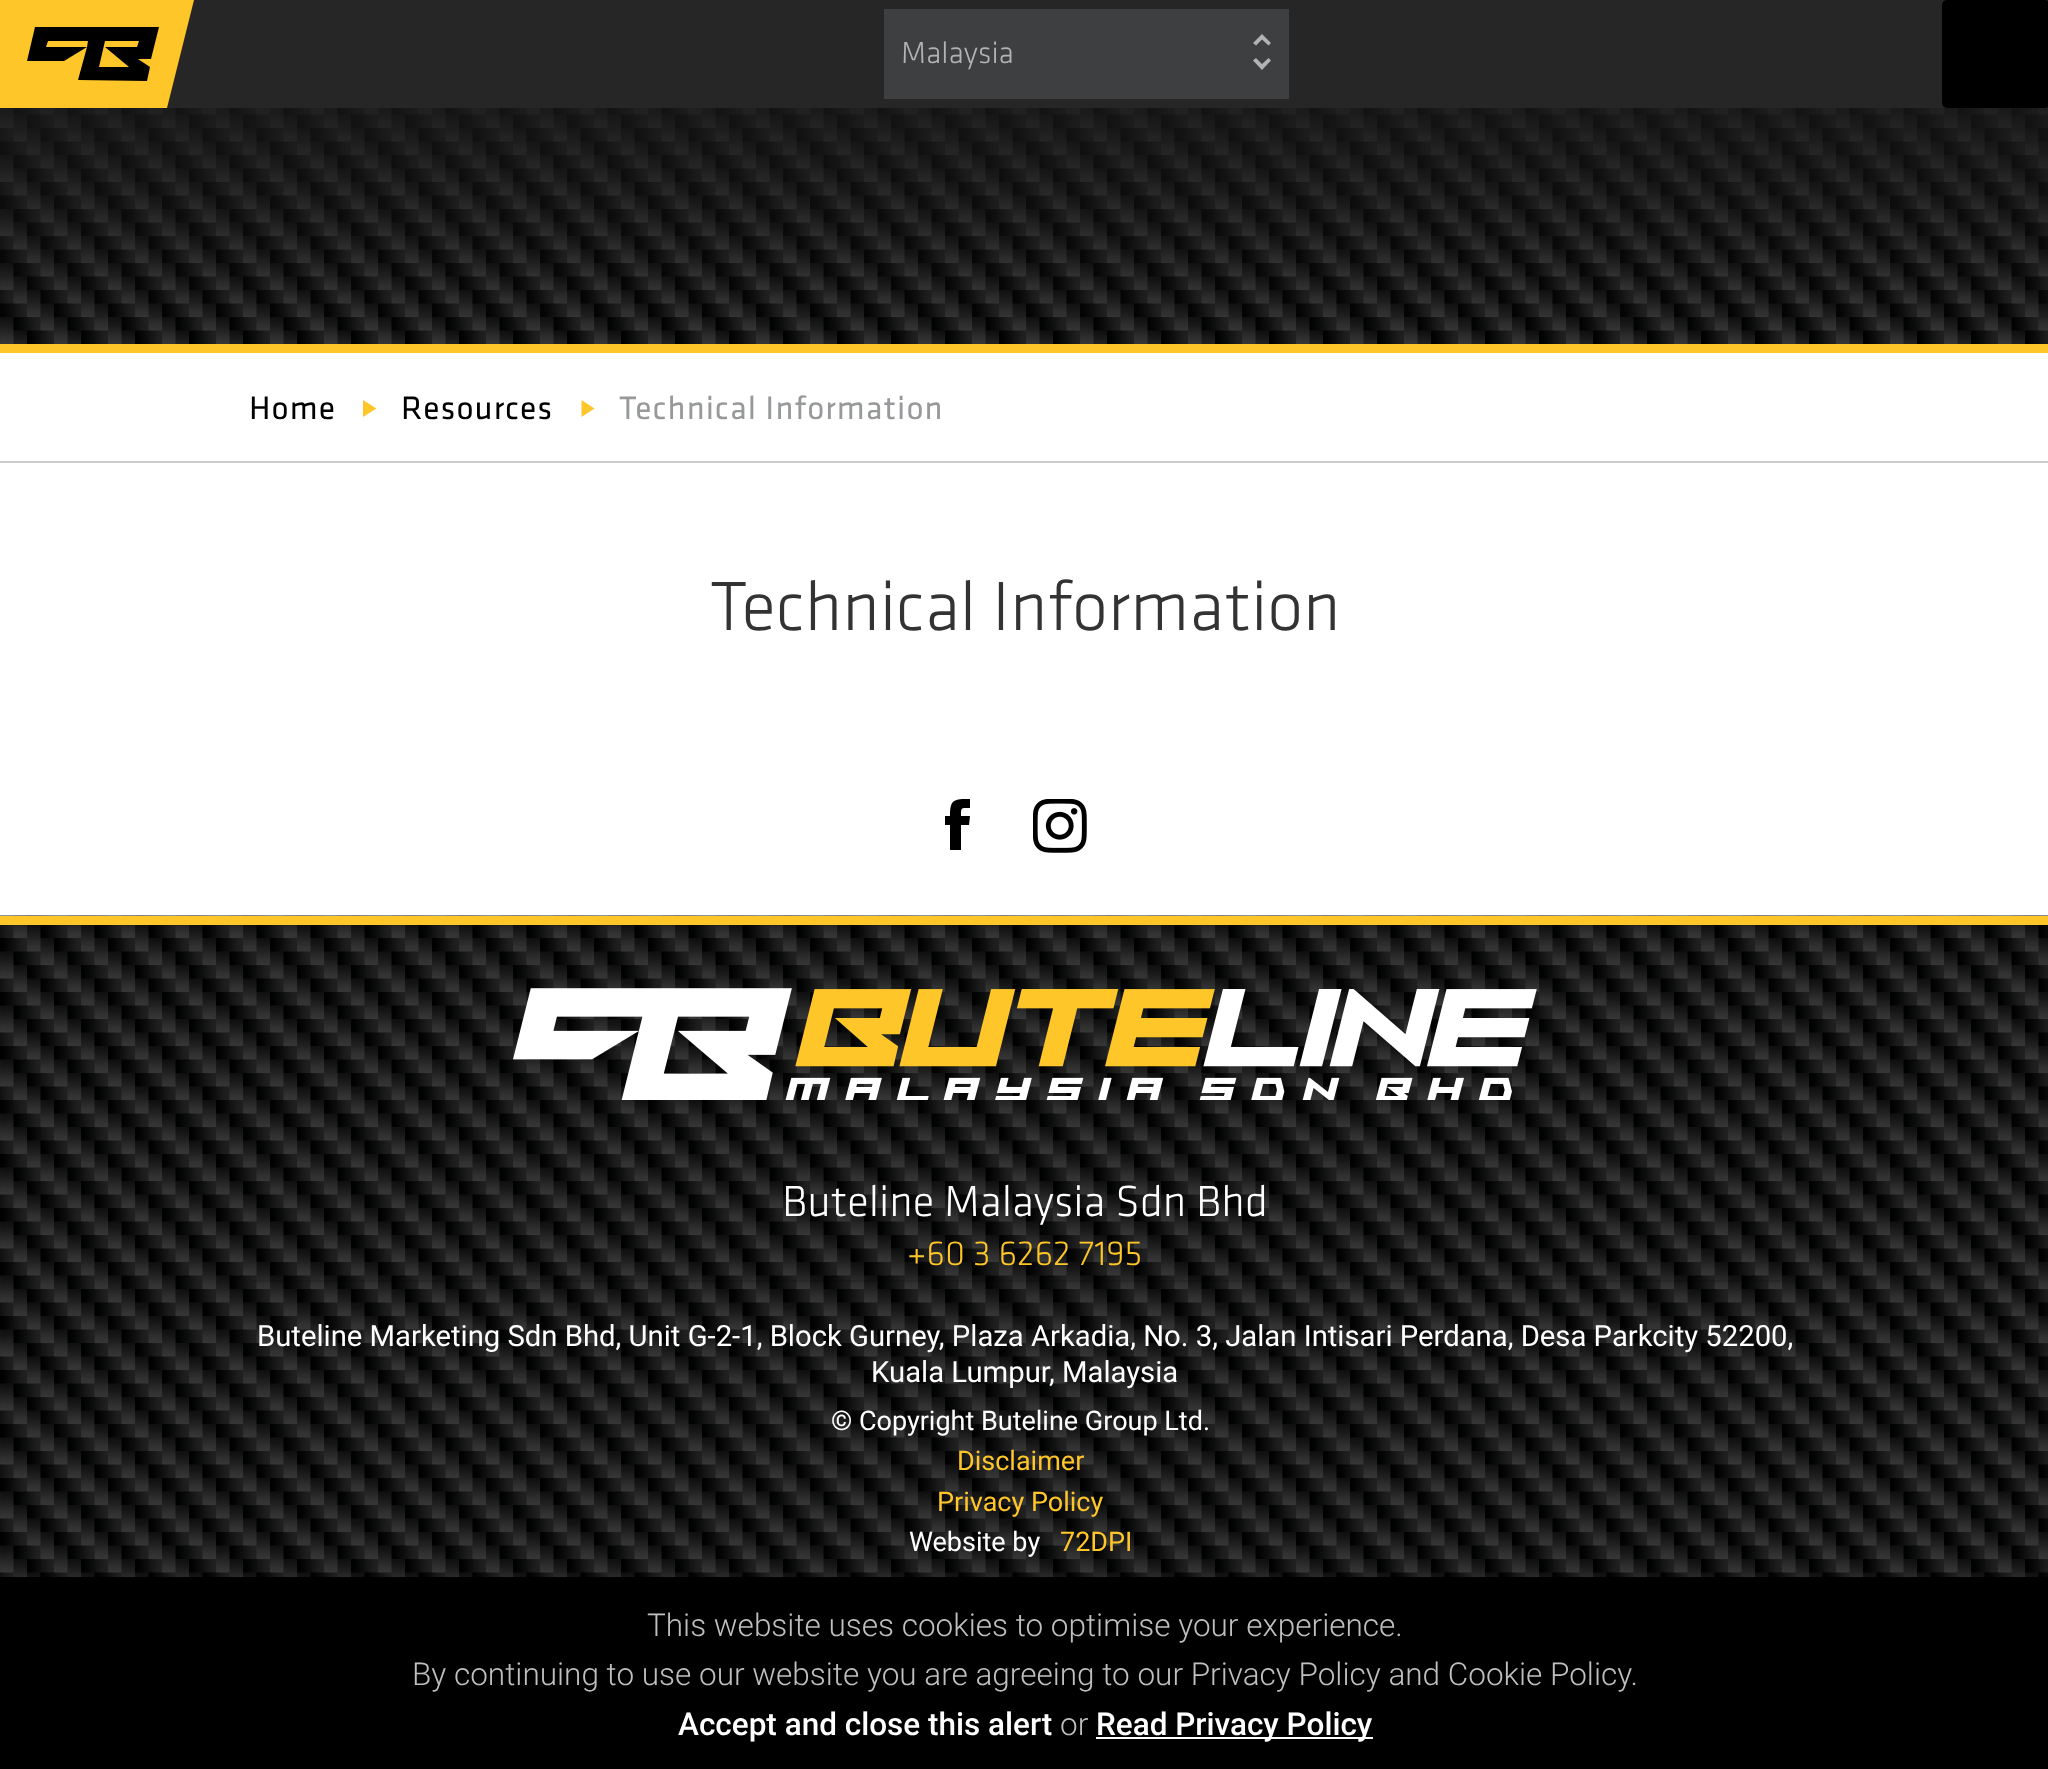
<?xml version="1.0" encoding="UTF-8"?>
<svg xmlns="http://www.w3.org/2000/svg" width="2048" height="1769">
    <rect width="100%" height="100%" fill="#FFFFFF"/>
    <rect x="167" y="0" width="1881" height="108" fill="#262626"/>
    <path d="M 0 0 H 194 L 167 108 H 0 Z" fill="#FFC629" fill-rule="evenodd"/>
    <path d="M 78 80 L 87 47 L 64 61 H 27 L 35 27 H 159 L 151 59 H 138 L 150 67 L 147 81 Z M 87 47 L 88 41 H 48 L 46 47 Z M 129 67 L 105 47 H 137 L 139 41 H 105 L 99 67 Z" fill="#000000" fill-rule="evenodd"/>
    <rect x="884" y="9" width="405" height="90" fill="#3E3F40"/>
    <text x="901" y="63" font-family="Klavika" font-size="31.5" font-weight="300" fill="#B3B3B3">Malaysia</text>
    <path d="M 1262 39.5 L 1268.5 45.5 L 1271 43 L 1262 34 L 1253 43 L 1256 45.5 Z M 1262 64 L 1256 58 L 1253 60.5 L 1262 70 L 1271 60.5 L 1268.5 58 Z" fill="#B3B3B3" fill-rule="evenodd"/>
    <rect x="1942" y="0" width="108" height="108" rx="5" fill="#000000"/>
    <image x="0" y="108" width="2048" height="236" href="img_01.png"/>
    <rect x="0" y="344" width="2048" height="9" fill="#FFC629"/>
    <rect x="0" y="461" width="2048" height="2" fill="#CCCCCC"/>
    <text x="249" y="419" font-family="Klavika" font-size="33.75" letter-spacing="1.1" fill="#000000">Home</text>
    <path d="M 363 400 L 376.5 408.5 L 363 417 Z" fill="#FFC629"/>
    <text x="401" y="419" font-family="Klavika" font-size="33.75" letter-spacing="1.1" fill="#000000">Resources</text>
    <path d="M 581.5 400 L 594.5 408.5 L 581.5 417 Z" fill="#FFC629"/>
    <text x="619" y="419" font-family="Klavika" font-size="33.75" letter-spacing="1.1" fill="#97999B">Technical Information</text>
    <text x="710" y="630" font-family="Klavika" font-size="72" font-weight="300" fill="#333333">Technical Information</text>
    <path d="M 969 825 H 961 V 850 H 950 V 825 H 945 V 816 H 950 C 950 799 954 799 970 799 V 808 C 961 808 961 807 961 816 H 970 Z" fill="#000000"/>
    <image x="1033" y="799" width="54" height="54" href="img_02.png"/>
    <image x="0" y="915" width="2048" height="662" href="img_03.png"/>
    <rect x="0" y="916" width="2048" height="9" fill="#FFC629"/>
    <image x="513" y="988" width="1024" height="112" href="img_04.png"/>
    <rect x="250" y="1280" width="1532" height="2" fill="#000000" fill-opacity="0.1"/>
    <text x="782" y="1216" font-family="Klavika" font-size="45" font-weight="300" fill="#FFFFFF">Buteline Malaysia Sdn Bhd</text>
    <text x="907" y="1265" font-family="Klavika" font-size="36" font-weight="300" fill="#FFC629">+60 3 6262 7195</text>
    <text x="257" y="1346" font-family="Roboto" font-size="29.25" fill="#FFFFFF">Buteline Marketing Sdn Bhd, Unit G-2-1, Block Gurney, Plaza Arkadia, No. 3, Jalan Intisari Perdana, Desa Parkcity 52200,</text>
    <text x="871" y="1382" font-family="Roboto" font-size="29.25" fill="#FFFFFF">Kuala Lumpur, Malaysia</text>
    <text x="831" y="1430" font-family="Roboto" font-size="27" fill="#FFFFFF">© Copyright Buteline Group Ltd.</text>
    <text x="957" y="1470" font-family="Roboto" font-size="27" fill="#FFC629">Disclaimer</text>
    <text x="937" y="1511" font-family="Roboto" font-size="27" fill="#FFC629">Privacy Policy</text>
    <text x="909" y="1551" font-family="Roboto" font-size="27" fill="#FFFFFF">Website by</text>
    <text x="1060" y="1551" font-family="Roboto" font-size="27" fill="#FFC629">72DPI</text>
    <rect x="0" y="1577" width="2048" height="192" fill="#000000"/>
    <text x="647" y="1636" font-family="Roboto" font-size="31.5" font-weight="300" fill="#BFBFBF">This website uses cookies to optimise your experience.</text>
    <text x="412" y="1685" font-family="Roboto" font-size="31.5" font-weight="300" fill="#BFBFBF">By continuing to use our website you are agreeing to our Privacy Policy and Cookie Policy.</text>
    <text x="678" y="1735" font-family="Roboto" font-size="31.5" font-weight="500" fill="#FFFFFF">Accept and close this alert</text>
    <text x="1060" y="1735" font-family="Roboto" font-size="31.5" font-weight="300" fill="#BFBFBF">or</text>
    <rect x="1096" y="1737" width="277" height="2" fill="#FFFFFF"/>
    <text x="1096" y="1735" font-family="Roboto" font-size="31.5" font-weight="500" fill="#FFFFFF">Read Privacy Policy</text>
</svg>
